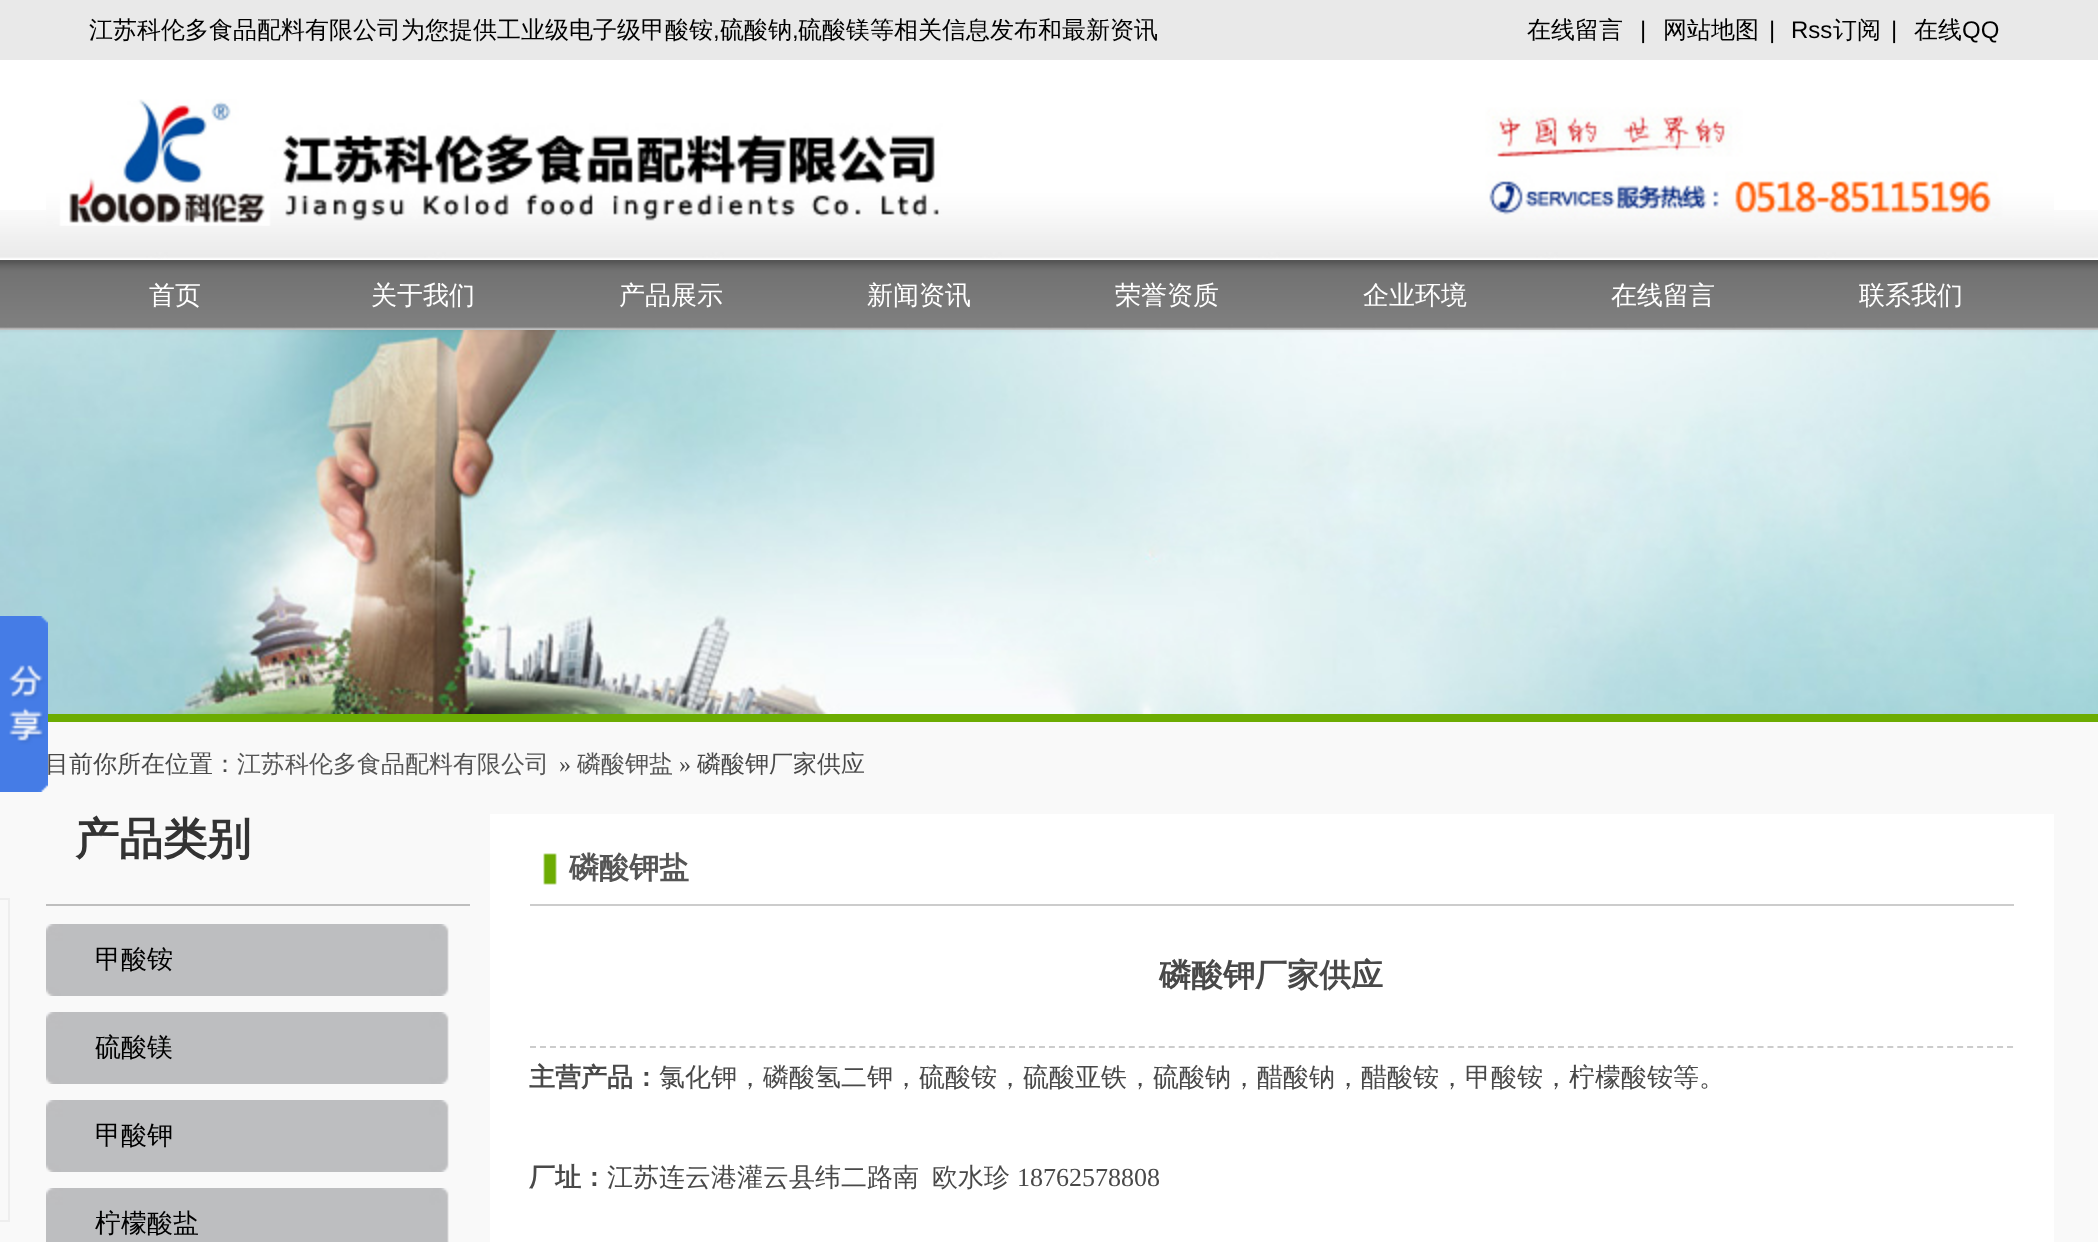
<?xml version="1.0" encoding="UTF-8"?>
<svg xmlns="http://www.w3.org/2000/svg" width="2098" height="1242">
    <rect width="100%" height="100%" fill="#FFFFFF"/>
    <rect x="0" y="0" width="2098" height="60" fill="#E9E9E9"/>
    <text x="89" y="38" font-family="WenQuanYi Zen Hei" font-size="24" font-weight="500" fill="#000000">江苏科伦多食品配料有限公司为您提供工业级电子级甲酸铵</text>
    <text x="713" y="38" font-family="Liberation Sans" font-size="24" fill="#000000">,</text>
    <text x="720" y="38" font-family="WenQuanYi Zen Hei" font-size="24" font-weight="500" fill="#000000">硫酸钠</text>
    <text x="792" y="38" font-family="Liberation Sans" font-size="24" fill="#000000">,</text>
    <text x="798" y="38" font-family="WenQuanYi Zen Hei" font-size="24" font-weight="500" fill="#000000">硫酸镁等相关信息发布和最新资讯</text>
    <text x="1527" y="38" font-family="WenQuanYi Zen Hei" font-size="24" font-weight="500" fill="#000000">在线留言</text>
    <text x="1640" y="38" font-family="Liberation Sans" font-size="24" fill="#000000">|</text>
    <text x="1663" y="38" font-family="WenQuanYi Zen Hei" font-size="24" font-weight="500" fill="#000000">网站地图</text>
    <text x="1769" y="38" font-family="Liberation Sans" font-size="24" fill="#000000">|</text>
    <text x="1791" y="38" font-family="Liberation Sans" font-size="24" fill="#000000">Rss</text>
    <text x="1833" y="38" font-family="WenQuanYi Zen Hei" font-size="24" font-weight="500" fill="#000000">订阅</text>
    <text x="1891" y="38" font-family="Liberation Sans" font-size="24" fill="#000000">|</text>
    <text x="1914" y="38" font-family="WenQuanYi Zen Hei" font-size="24" font-weight="500" fill="#000000">在线</text>
    <text x="1962" y="38" font-family="Liberation Sans" font-size="24" fill="#000000">QQ</text>
    <image x="0" y="210" width="2098" height="49" href="img_01.png"/>
    <image x="46" y="99" width="2008" height="127" href="img_02.png"/>
    <image x="0" y="260" width="2098" height="70" href="img_03.png"/>
    <text x="149" y="304" font-family="WenQuanYi Zen Hei" font-size="26" font-weight="500" fill="#FFFFFF">首页</text>
    <text x="371" y="304" font-family="WenQuanYi Zen Hei" font-size="26" font-weight="500" fill="#FFFFFF">关于我们</text>
    <text x="619" y="304" font-family="WenQuanYi Zen Hei" font-size="26" font-weight="500" fill="#FFFFFF">产品展示</text>
    <text x="867" y="304" font-family="WenQuanYi Zen Hei" font-size="26" font-weight="500" fill="#FFFFFF">新闻资讯</text>
    <text x="1115" y="304" font-family="WenQuanYi Zen Hei" font-size="26" font-weight="500" fill="#FFFFFF">荣誉资质</text>
    <text x="1363" y="304" font-family="WenQuanYi Zen Hei" font-size="26" font-weight="500" fill="#FFFFFF">企业环境</text>
    <text x="1611" y="304" font-family="WenQuanYi Zen Hei" font-size="26" font-weight="500" fill="#FFFFFF">在线留言</text>
    <text x="1859" y="304" font-family="WenQuanYi Zen Hei" font-size="26" font-weight="500" fill="#FFFFFF">联系我们</text>
    <rect x="0" y="722" width="2098" height="520" fill="#F9F9F9"/>
    <image x="0" y="330" width="2098" height="384" href="img_05.png"/>
    <image x="0" y="616" width="48" height="176" href="img_04.png"/>
    <rect x="-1" y="899" width="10" height="322" fill="none" stroke="#EEEEEE" stroke-width="2"/>
    <rect x="48" y="714" width="2050" height="8" fill="#6CAC02"/>
    <text x="45" y="772" font-family="WenQuanYi Zen Hei" font-size="24" font-weight="500" fill="#494949">目前你所在位置：</text>
    <text x="237" y="772" font-family="WenQuanYi Zen Hei" font-size="24" font-weight="500" fill="#555555">江苏科伦多食品配料有限公司</text>
    <text x="559" y="772" font-family="Liberation Serif" font-size="24" fill="#494949">»</text>
    <text x="577" y="772" font-family="WenQuanYi Zen Hei" font-size="24" font-weight="500" fill="#555555">磷酸钾盐</text>
    <text x="679" y="772" font-family="Liberation Serif" font-size="24" fill="#494949">»</text>
    <text x="697" y="772" font-family="WenQuanYi Zen Hei" font-size="24" font-weight="500" fill="#494949">磷酸钾厂家供应</text>
    <text x="75" y="854" font-family="WenQuanYi Zen Hei" font-size="44" font-weight="700" fill="#333333">产品类别</text>
    <rect x="46" y="904" width="424" height="2" fill="#BEBEBE"/>
    <image x="46" y="924" width="403" height="72" href="img_06.png"/>
    <text x="95" y="968" font-family="WenQuanYi Zen Hei" font-size="26" font-weight="500" fill="#000000">甲酸铵</text>
    <image x="46" y="1012" width="403" height="72" href="img_06.png"/>
    <text x="95" y="1056" font-family="WenQuanYi Zen Hei" font-size="26" font-weight="500" fill="#000000">硫酸镁</text>
    <image x="46" y="1100" width="403" height="72" href="img_06.png"/>
    <text x="95" y="1144" font-family="WenQuanYi Zen Hei" font-size="26" font-weight="500" fill="#000000">甲酸钾</text>
    <image x="46" y="1188" width="403" height="54" href="img_07.png"/>
    <text x="95" y="1232" font-family="WenQuanYi Zen Hei" font-size="26" font-weight="500" fill="#000000">柠檬酸盐</text>
    <rect x="490" y="814" width="1564" height="428" fill="#FFFFFF"/>
    <rect x="530" y="904" width="1484" height="2" fill="#CCCCCC"/>
    <image x="543" y="853" width="14" height="32" href="img_08.png"/>
    <text x="569" y="878" font-family="WenQuanYi Zen Hei" font-size="30" font-weight="700" fill="#555555">磷酸钾盐</text>
    <path d="M 530 1047 H 2014" fill="none" stroke="#CCCCCC" stroke-width="2" stroke-dasharray="6 3.98"/>
    <text x="1159" y="986" font-family="WenQuanYi Zen Hei" font-size="32" font-weight="700" fill="#494949">磷酸钾厂家供应</text>
    <text x="529" y="1086" font-family="WenQuanYi Zen Hei" font-size="26" font-weight="700" fill="#494949">主营产品：</text>
    <text x="659" y="1086" font-family="WenQuanYi Zen Hei" font-size="26" font-weight="500" fill="#494949">氯化钾，磷酸氢二钾，硫酸铵，硫酸亚铁，硫酸钠，醋酸钠，醋酸铵，甲酸铵，柠檬酸铵等。</text>
    <text x="529" y="1186" font-family="WenQuanYi Zen Hei" font-size="26" font-weight="700" fill="#494949">厂址：</text>
    <text x="607" y="1186" font-family="WenQuanYi Zen Hei" font-size="26" font-weight="500" fill="#494949">江苏连云港灌云县纬二路南</text>
    <text x="932" y="1186" font-family="WenQuanYi Zen Hei" font-size="26" font-weight="500" fill="#494949">欧水珍</text>
    <text x="1017" y="1186" font-family="Liberation Serif" font-size="26" fill="#494949">18762578808</text>
</svg>
